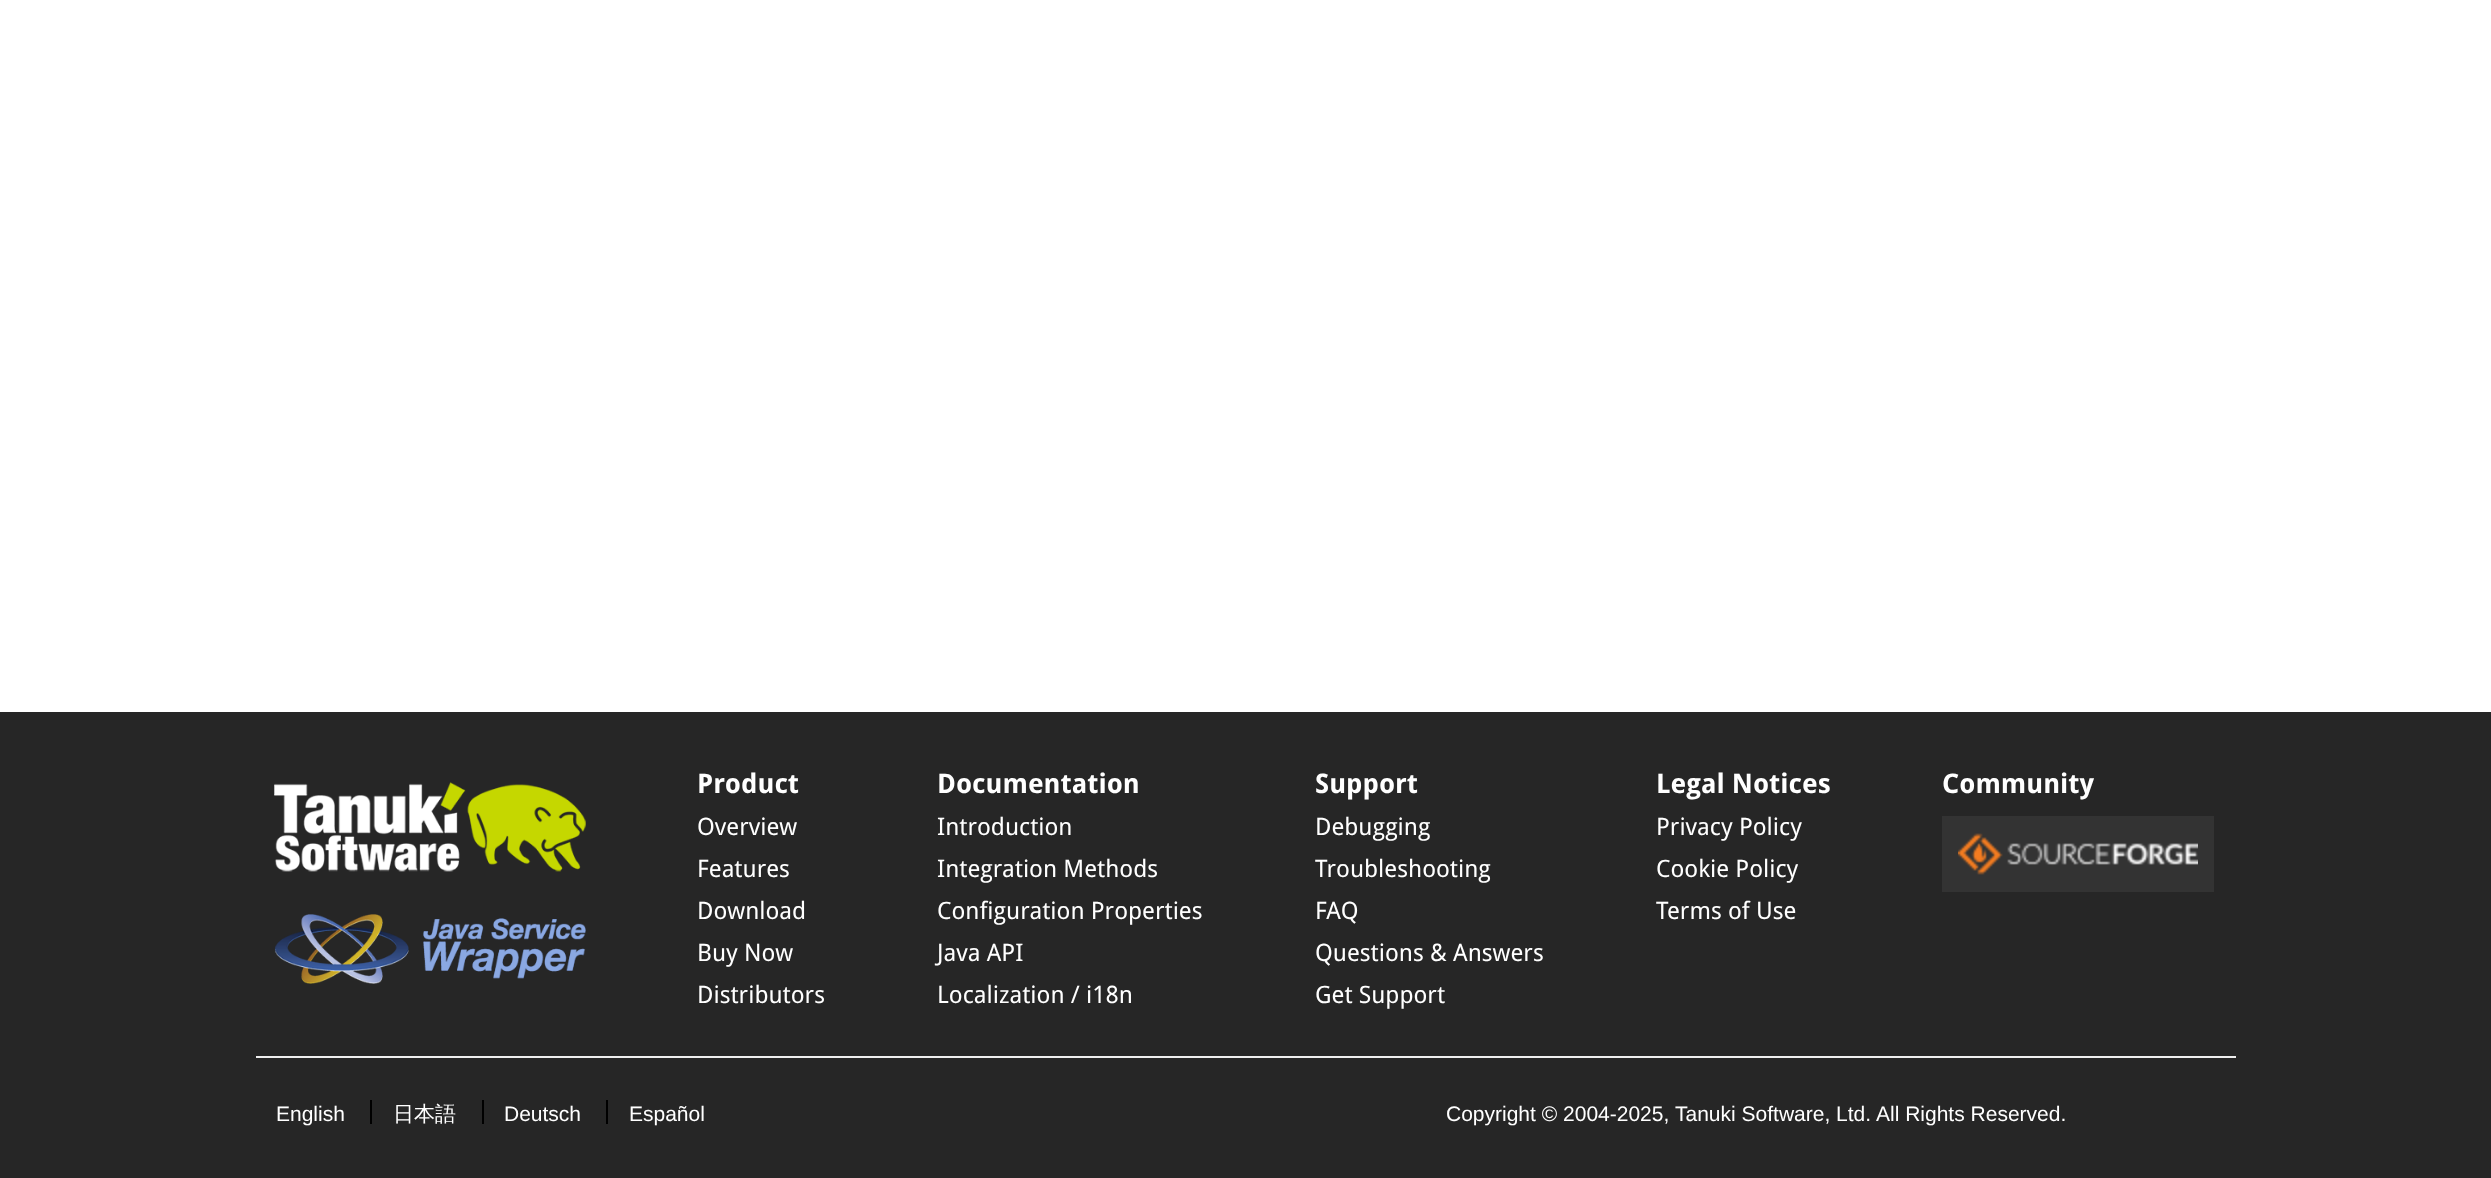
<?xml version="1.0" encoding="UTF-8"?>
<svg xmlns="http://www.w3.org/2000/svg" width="2491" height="1178">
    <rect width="100%" height="100%" fill="#FFFFFF"/>
    <rect x="0" y="712" width="2491" height="466" fill="#262626"/>
    <image x="274" y="782" width="312" height="90" href="img_01.png"/>
    <image x="274" y="914" width="312" height="70" href="img_02.png"/>
    <text x="697" y="793" font-family="Droid Sans" font-size="27" font-weight="700" fill="#FFFFFF">Product</text>
    <text font-family="Droid Sans" font-size="24" fill="#FFFFFF">
        <tspan x="697" y="835">Overview</tspan>
        <tspan x="697" y="877">Features</tspan>
        <tspan x="697" y="919">Download</tspan>
        <tspan x="697" y="961">Buy Now</tspan>
        <tspan x="697" y="1003">Distributors</tspan>
    </text>
    <text x="937" y="793" font-family="Droid Sans" font-size="27" font-weight="700" fill="#FFFFFF">Documentation</text>
    <text font-family="Droid Sans" font-size="24" fill="#FFFFFF">
        <tspan x="937" y="835">Introduction</tspan>
        <tspan x="937" y="877">Integration Methods</tspan>
        <tspan x="937" y="919">Configuration Properties</tspan>
        <tspan x="937" y="961">Java API</tspan>
        <tspan x="937" y="1003">Localization / i18n</tspan>
    </text>
    <text x="1315" y="793" font-family="Droid Sans" font-size="27" font-weight="700" fill="#FFFFFF">Support</text>
    <text font-family="Droid Sans" font-size="24" fill="#FFFFFF">
        <tspan x="1315" y="835">Debugging</tspan>
        <tspan x="1315" y="877">Troubleshooting</tspan>
        <tspan x="1315" y="919">FAQ</tspan>
        <tspan x="1315" y="961">Questions &amp; Answers</tspan>
        <tspan x="1315" y="1003">Get Support</tspan>
    </text>
    <text x="1656" y="793" font-family="Droid Sans" font-size="27" font-weight="700" fill="#FFFFFF">Legal Notices</text>
    <text font-family="Droid Sans" font-size="24" fill="#FFFFFF">
        <tspan x="1656" y="835">Privacy Policy</tspan>
        <tspan x="1656" y="877">Cookie Policy</tspan>
        <tspan x="1656" y="919">Terms of Use</tspan>
    </text>
    <text x="1942" y="793" font-family="Droid Sans" font-size="27" font-weight="700" fill="#FFFFFF">Community</text>
    <rect x="1942" y="816" width="16" height="76" fill="#333333"/>
    <rect x="1958" y="816" width="240" height="8" fill="#333333"/>
    <rect x="2198" y="816" width="16" height="68" fill="#333333"/>
    <image x="1958" y="824" width="240" height="60" href="img_03.png"/>
    <rect x="1958" y="884" width="256" height="8" fill="#333333"/>
    <rect x="256" y="1056" width="1980" height="2" fill="#EEEEEE"/>
    <text x="276" y="1121" font-family="Liberation Sans" font-size="21" fill="#FFFFFF">English</text>
    <rect x="370" y="1100" width="2" height="24" fill="#000000"/>
    <text x="393" y="1121" font-family="WenQuanYi Zen Hei" font-size="21" font-weight="500" fill="#FFFFFF">日本語</text>
    <rect x="482" y="1100" width="2" height="24" fill="#000000"/>
    <text x="504" y="1121" font-family="Liberation Sans" font-size="21" fill="#FFFFFF">Deutsch</text>
    <rect x="606" y="1100" width="2" height="24" fill="#000000"/>
    <text x="629" y="1121" font-family="Liberation Sans" font-size="21" fill="#FFFFFF">Español</text>
    <text x="1446" y="1121" font-family="Liberation Sans" font-size="21" fill="#FFFFFF">Copyright © 2004-2025,</text>
    <text x="1675" y="1121" font-family="Liberation Sans" font-size="21" fill="#FFFFFF">Tanuki Software, Ltd.</text>
    <text x="1876" y="1121" font-family="Liberation Sans" font-size="21" fill="#FFFFFF">All Rights Reserved.</text>
</svg>
